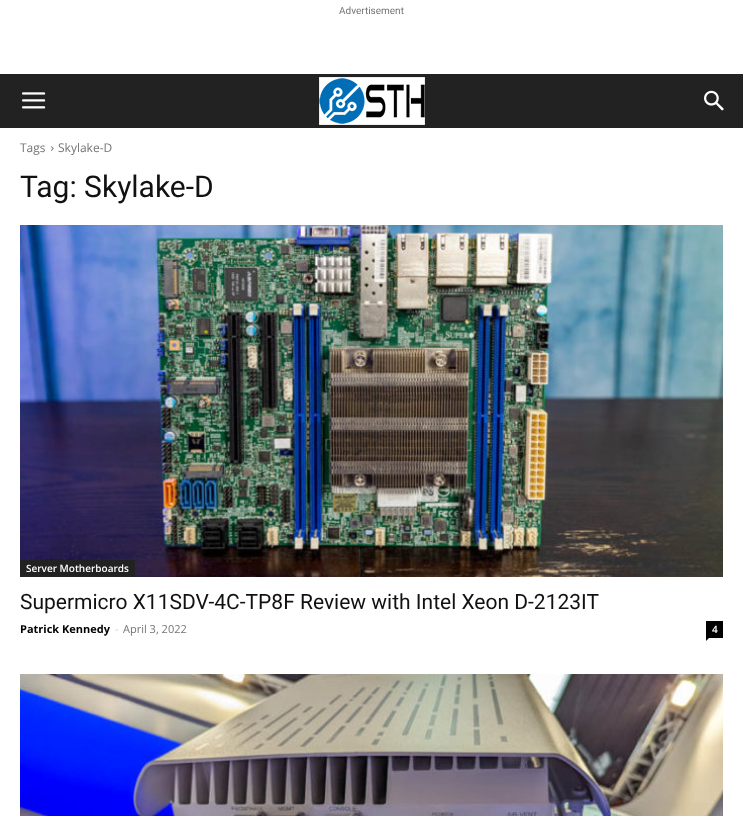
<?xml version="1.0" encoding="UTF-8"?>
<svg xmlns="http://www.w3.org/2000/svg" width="743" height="816">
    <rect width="100%" height="100%" fill="#FFFFFF"/>
    <text x="339" y="14" font-family="Roboto" font-size="10" fill="#747474">Advertisement</text>
    <rect x="0" y="74" width="743" height="54" fill="#222222"/>
    <image x="22" y="92" width="24" height="17" href="img_01.png"/>
    <image x="319" y="77" width="106" height="48" href="img_02.png"/>
    <image x="704" y="90" width="20" height="21" href="img_03.png"/>
    <text x="20" y="152" font-family="Open Sans" font-size="12" fill="#747474">Tags</text>
    <image x="51" y="146" width="3" height="5" href="img_04.png"/>
    <text x="58" y="152" font-family="Open Sans" font-size="12" fill="#747474">Skylake-D</text>
    <text x="20" y="197" font-family="Roboto" font-size="30" fill="#111111">Tag: Skylake-D</text>
    <image x="20" y="225" width="703" height="352" href="img_05.png"/>
    <rect x="20" y="560" width="115" height="17" fill="#222222"/>
    <text x="26" y="572" font-family="Open Sans" font-size="10" font-weight="600" fill="#FFFFFF">Server Motherboards</text>
    <text x="20" y="609" font-family="Roboto" font-size="21" fill="#111111">Supermicro X11SDV-4C-TP8F Review with Intel Xeon D-2123IT</text>
    <text x="20" y="633" font-family="Open Sans" font-size="11" font-weight="700" fill="#000000">Patrick Kennedy</text>
    <text x="115" y="633" font-family="Open Sans" font-size="11" fill="#CCCCCC">-</text>
    <text x="123" y="633" font-family="Open Sans" font-size="11" fill="#747474">April 3, 2022</text>
    <rect x="706" y="621" width="17" height="17" fill="#000000"/>
    <text x="712" y="633" font-family="Open Sans" font-size="10" font-weight="600" fill="#FFFFFF">4</text>
    <path d="M 706 638 H 709 L 706 641 Z" fill="#000000"/>
    <image x="20" y="674" width="703" height="142" href="img_06.png"/>
</svg>
